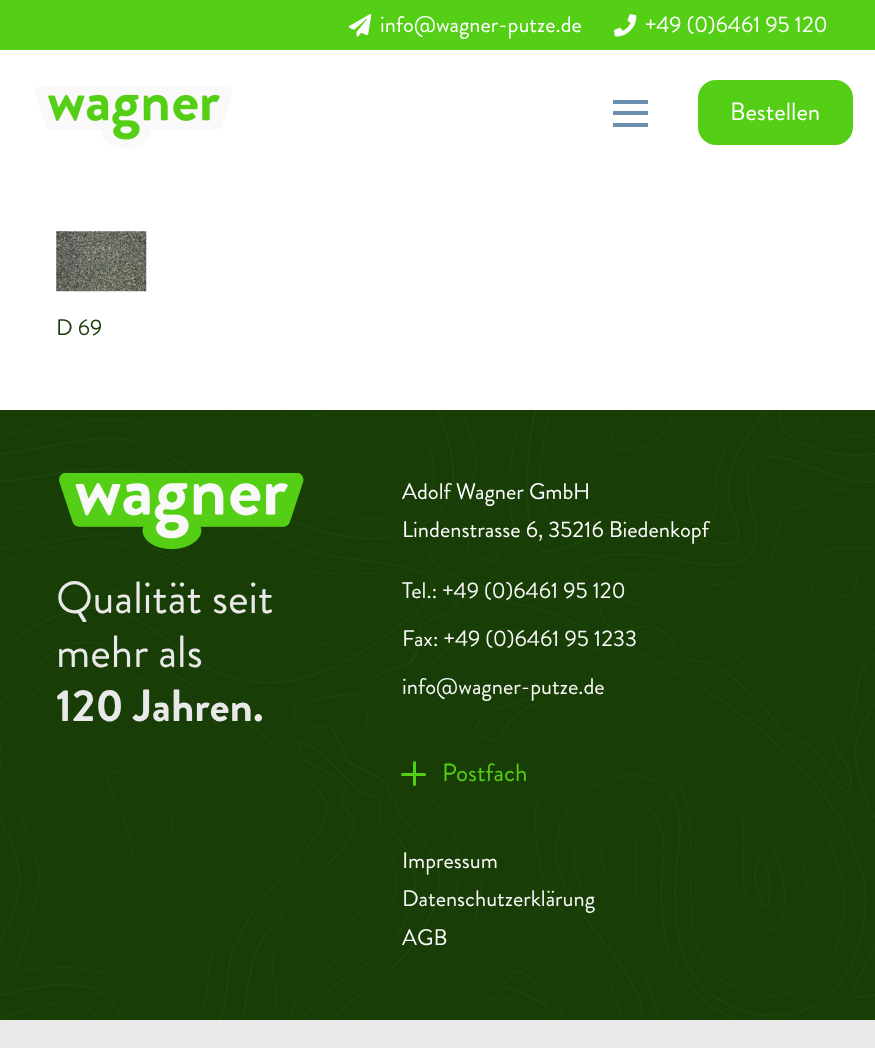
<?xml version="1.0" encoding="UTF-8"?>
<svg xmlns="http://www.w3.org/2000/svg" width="875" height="1048">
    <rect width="100%" height="100%" fill="#FFFFFF"/>
    <rect x="0" y="0" width="875" height="50" fill="#55CE16"/>
    <image x="348" y="14" width="24" height="23" href="img_01.png"/>
    <text x="380" y="32" font-family="Brandon Grotesque" font-size="22.5" fill="#FFFFFF">info@wagner-putze.de</text>
    <image x="613" y="14" width="24" height="23" href="img_02.png"/>
    <text x="645" y="32" font-family="Brandon Grotesque" font-size="22.5" fill="#FFFFFF">+49 (0)6461 95 120</text>
    <image x="35" y="86" width="197" height="62" href="img_03.png"/>
    <rect x="613" y="111" width="35" height="4" fill="#6A8EAE"/>
    <rect x="613" y="100" width="35" height="4" fill="#6A8EAE"/>
    <rect x="613" y="123" width="35" height="4" fill="#6A8EAE"/>
    <rect x="698" y="80" width="155" height="65" rx="18" fill="#55CE16"/>
    <text x="730" y="120" font-family="Brandon Grotesque" font-size="25" fill="#FFFFFF">Bestellen</text>
    <image x="56" y="231" width="91" height="61" href="img_04.png"/>
    <text x="56" y="335" font-family="Brandon Grotesque" font-size="22.5" fill="#193D06">D 69</text>
    <rect x="0" y="410" width="875" height="610" fill="#193D06"/>
    <image x="0" y="410" width="875" height="610" href="img_05.png"/>
    <image x="59" y="473" width="245" height="77" href="img_06.png"/>
    <text font-family="Brandon Grotesque" font-size="45" fill="#E9E9E9">
        <tspan x="56" y="613">Qualität seit</tspan>
        <tspan x="56" y="667">mehr als</tspan>
    </text>
    <text x="56" y="721" font-family="Brandon Grotesque" font-size="45" font-weight="700" fill="#E9E9E9">120 Jahren.</text>
    <text font-family="Brandon Grotesque" font-size="22.6" fill="#FFFFFF">
        <tspan x="402" y="499">Adolf Wagner GmbH</tspan>
        <tspan x="402" y="537">Lindenstrasse 6, 35216 Biedenkopf</tspan>
    </text>
    <text x="402" y="598" font-family="Brandon Grotesque" font-size="22.6" fill="#F9F9F9">Tel.: +49 (0)6461 95 120</text>
    <text x="402" y="646" font-family="Brandon Grotesque" font-size="22.6" fill="#F9F9F9">Fax: +49 (0)6461 95 1233</text>
    <text x="402" y="694" font-family="Brandon Grotesque" font-size="22.6" fill="#F9F9F9">info@wagner-putze.de</text>
    <rect x="417" y="729" width="366" height="1" fill="#193D06"/>
    <rect x="401" y="818" width="405" height="1" fill="#193D06"/>
    <rect x="413" y="761" width="3" height="25" rx="1.5" fill="#55CE16"/>
    <rect x="401" y="773" width="25" height="3" rx="1.5" fill="#55CE16"/>
    <text x="442" y="781" font-family="Brandon Grotesque" font-size="25" fill="#55CE16">Postfach</text>
    <text font-family="Brandon Grotesque" font-size="22.5" fill="#F9F9F9">
        <tspan x="402" y="868">Impressum</tspan>
        <tspan x="402" y="906">Datenschutzerklärung</tspan>
        <tspan x="402" y="945">AGB</tspan>
    </text>
    <rect x="0" y="1020" width="875" height="28" fill="#E9E9E9"/>
</svg>
